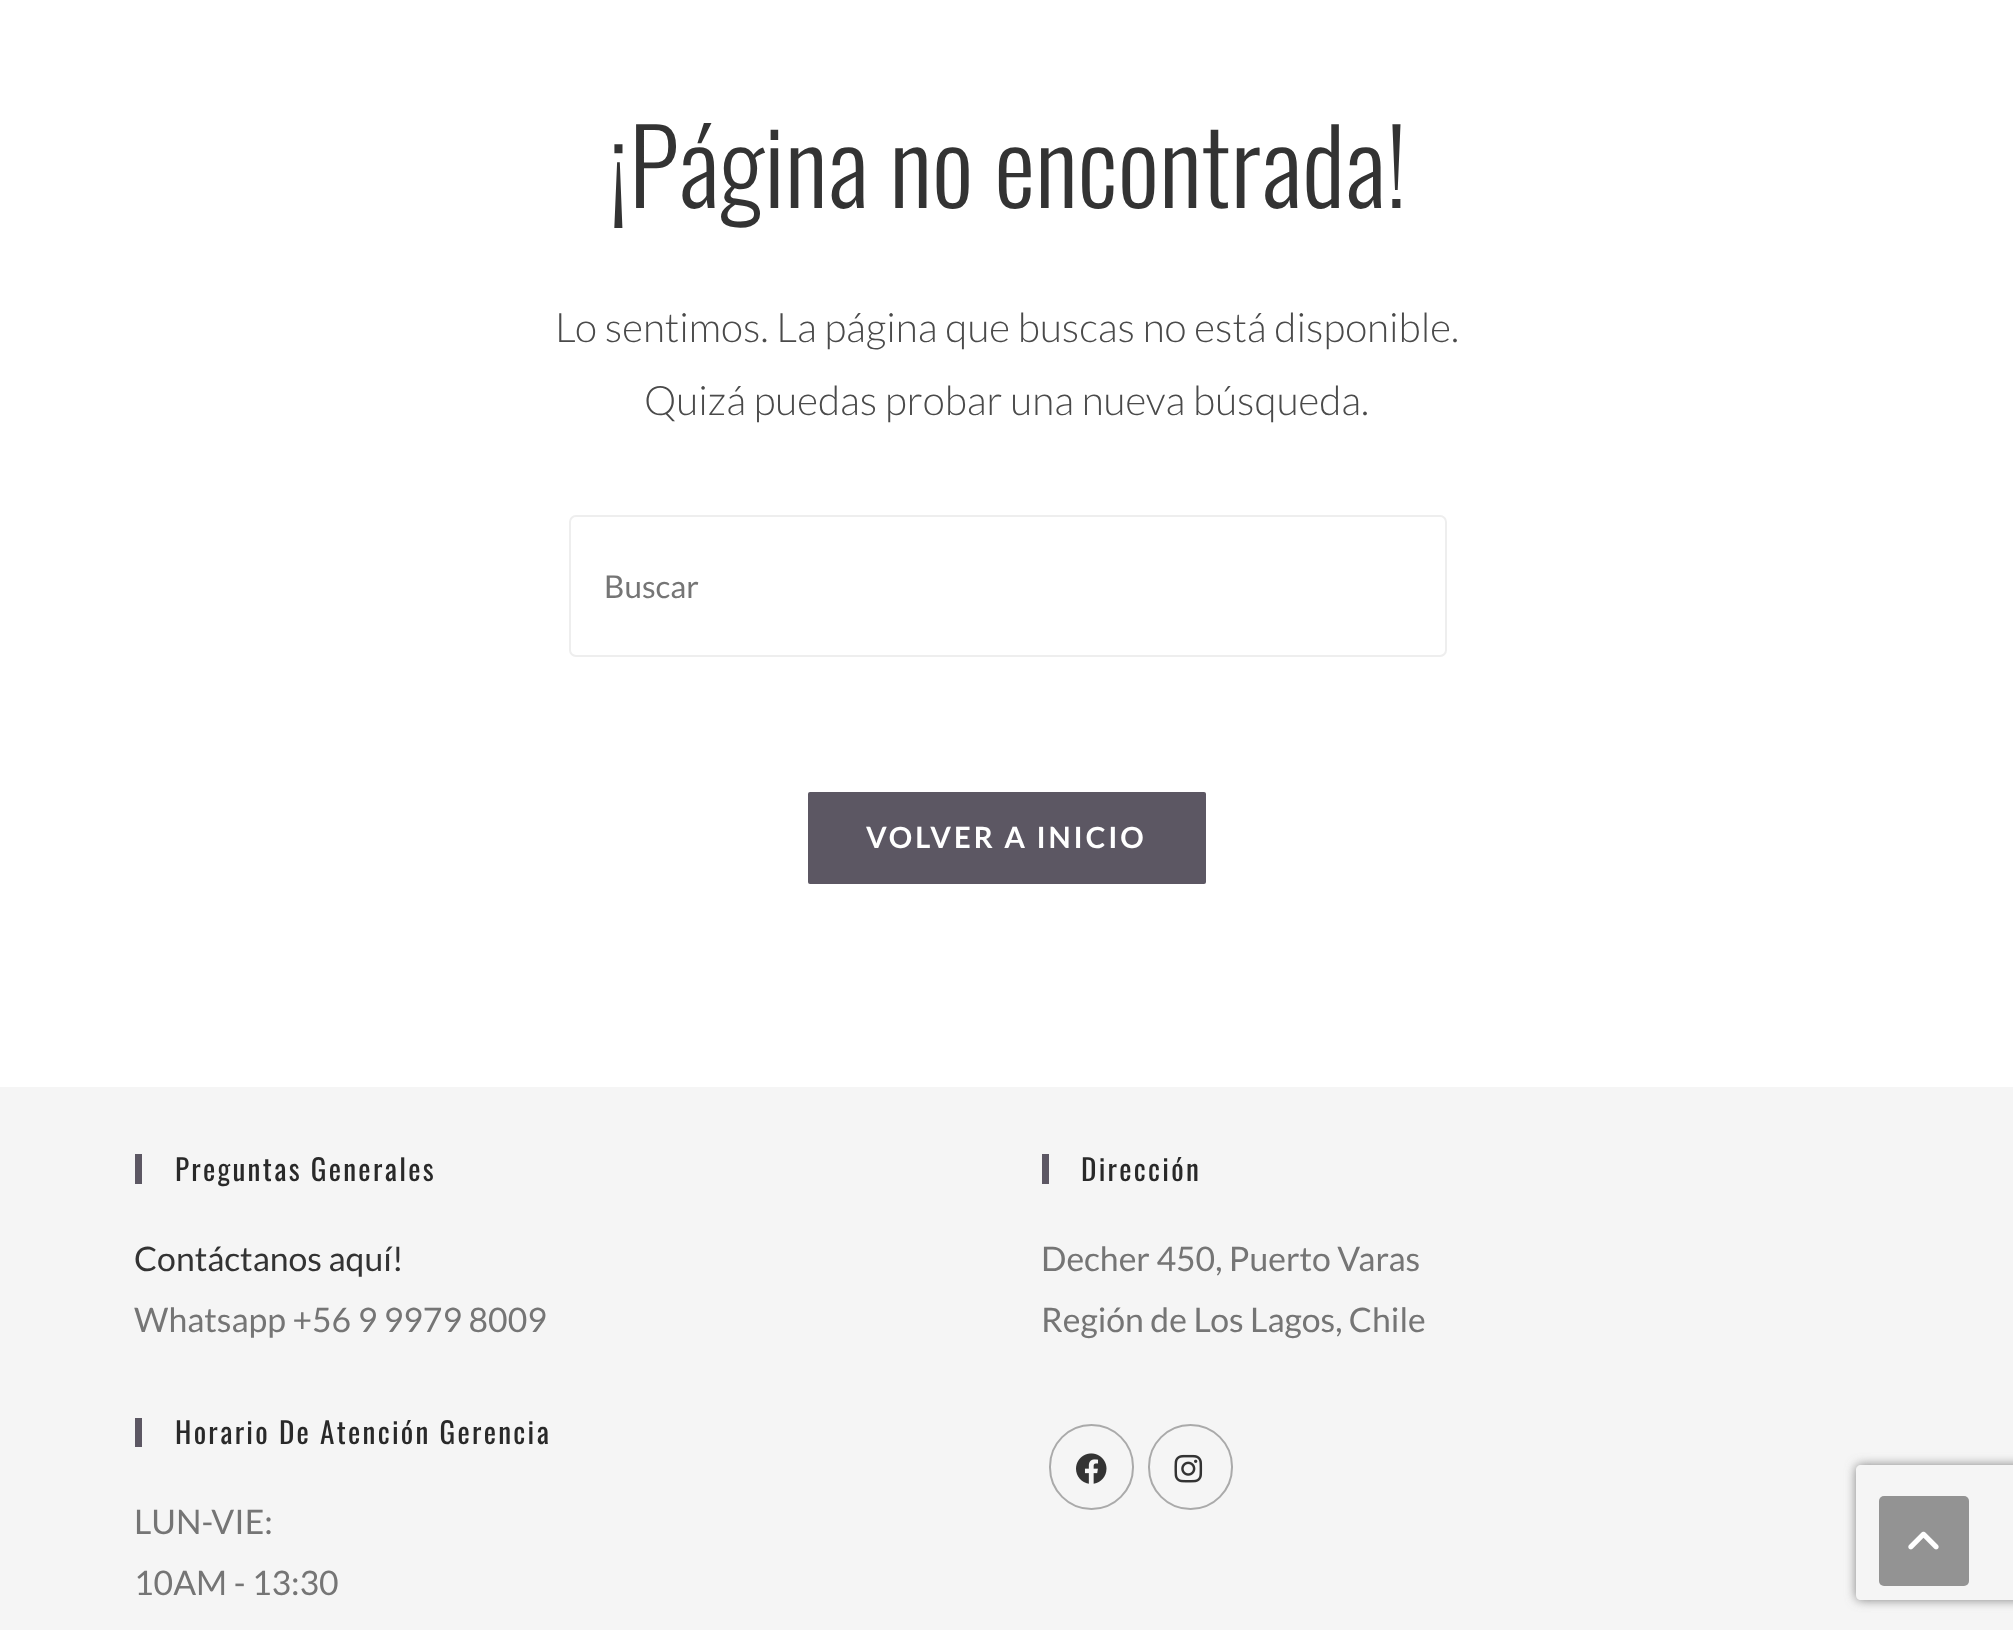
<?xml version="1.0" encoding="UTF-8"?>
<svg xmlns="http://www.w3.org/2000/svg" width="2013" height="1630">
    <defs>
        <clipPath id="clip1"><path d="M 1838 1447 H 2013 V 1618 H 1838 Z M 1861 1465 H 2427 C 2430 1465 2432 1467 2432 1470 V 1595 C 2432 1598 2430 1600 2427 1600 H 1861 C 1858 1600 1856 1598 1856 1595 V 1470 C 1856 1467 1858 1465 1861 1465 Z" clip-rule="evenodd"/></clipPath>
        <filter id="blur1" x="-50%" y="-200%" width="200%" height="500%"><feGaussianBlur stdDeviation="5.5"/></filter>
    </defs>
    <rect width="100%" height="100%" fill="#FFFFFF"/>
    <text x="608" y="208" font-family="Oswald" font-size="103.5" font-weight="300" fill="#333333">¡Página no encontrada!</text>
    <text x="555" y="342" font-family="Lato" font-size="40.5" font-weight="300" fill="#4A4A4A">Lo sentimos. La página que buscas no está disponible.</text>
    <text x="644" y="415" font-family="Lato" font-size="40.5" font-weight="300" fill="#4A4A4A">Quizá puedas probar una nueva búsqueda.</text>
    <rect x="570" y="516" width="876" height="140" rx="6" fill="none" stroke="#EEEEEE" stroke-width="2"/>
    <text x="604" y="598" font-family="Lato" font-size="31.5" fill="#757575">Buscar</text>
    <rect x="808" y="792" width="398" height="92" rx="2" fill="#5C5763"/>
    <text x="866" y="848" font-family="Lato" font-size="29.25" font-weight="700" letter-spacing="2.9" fill="#FFFFFF">VOLVER A INICIO</text>
    <rect x="0" y="1087" width="2013" height="543" fill="#F5F5F5"/>
    <rect x="135" y="1154" width="7" height="30" fill="#5C5763"/>
    <text x="175" y="1181" font-family="Oswald" font-size="29.25" letter-spacing="2.25" fill="#292929">Preguntas Generales</text>
    <text x="134" y="1271" font-family="Lato" font-size="33.75" fill="#333333">Contáctanos aquí!</text>
    <text x="134" y="1332" font-family="Lato" font-size="33.75" fill="#757575">Whatsapp +56 9 9979 8009</text>
    <rect x="1042" y="1154" width="7" height="30" fill="#5C5763"/>
    <text x="1081" y="1181" font-family="Oswald" font-size="29.25" letter-spacing="2.25" fill="#292929">Dirección</text>
    <text font-family="Lato" font-size="33.75" fill="#757575">
        <tspan x="1041" y="1271">Decher 450, Puerto Varas</tspan>
        <tspan x="1041" y="1332">Región de Los Lagos, Chile</tspan>
    </text>
    <rect x="135" y="1418" width="7" height="29" fill="#5C5763"/>
    <text x="175" y="1444" font-family="Oswald" font-size="29.25" letter-spacing="2.25" fill="#292929">Horario De Atención Gerencia</text>
    <text font-family="Lato" font-size="33.75" fill="#757575">
        <tspan x="134" y="1534">LUN-VIE:</tspan>
        <tspan x="134" y="1595">10AM - 13:30</tspan>
    </text>
    <rect x="1050" y="1425" width="83" height="84" rx="41.5" fill="none" stroke="#AAAAAA" stroke-width="2"/>
    <image x="1076" y="1453" width="31" height="31" href="img_01.png"/>
    <rect x="1149" y="1425" width="83" height="84" rx="41.5" fill="none" stroke="#AAAAAA" stroke-width="2"/>
    <image x="1174" y="1454" width="29" height="29" href="img_02.png"/>
    <g clip-path="url(#clip1)">
        <rect x="1856" y="1465" width="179" height="135" rx="5" fill="#808080" filter="url(#blur1)"/>
    </g>
    <rect x="1879" y="1496" width="90" height="90" rx="5" fill="#939393"/>
    <image x="1908" y="1531" width="31" height="19" href="img_03.png"/>
</svg>
